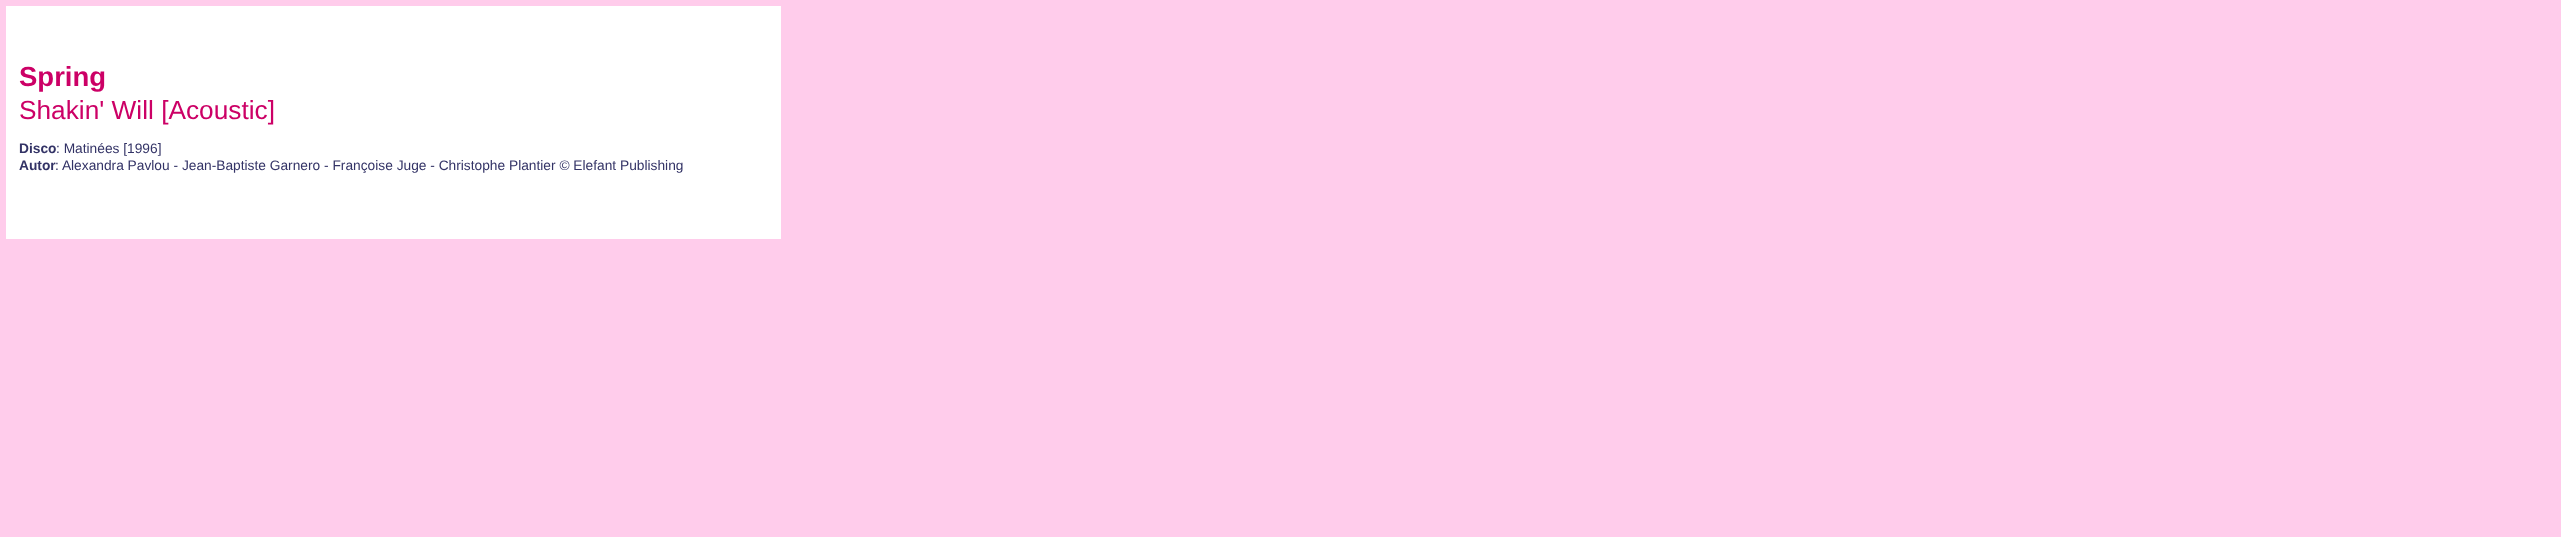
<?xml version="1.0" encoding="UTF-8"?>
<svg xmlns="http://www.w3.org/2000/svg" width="2561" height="537">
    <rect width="100%" height="100%" fill="#FFCCEB"/>
    <rect x="6" y="6" width="775" height="233" fill="#FFFFFF"/>
    <text x="19" y="86" font-family="Liberation Sans" font-size="27.5" font-weight="700" fill="#CC0066">Spring</text>
    <text x="19" y="119" font-family="Liberation Sans" font-size="26.25" fill="#CC0066">Shakin' Will [Acoustic]</text>
    <text x="19" y="153" font-family="Liberation Sans" font-size="13.75" font-weight="700" fill="#333366">Disco</text>
    <text x="56" y="153" font-family="Liberation Sans" font-size="13.75" fill="#333366">: Matinées [1996]</text>
    <text x="19" y="170" font-family="Liberation Sans" font-size="13.75" font-weight="700" fill="#333366">Autor</text>
    <text x="55" y="170" font-family="Liberation Sans" font-size="13.75" fill="#333366">: Alexandra Pavlou - Jean-Baptiste Garnero - Françoise Juge - Christophe Plantier © Elefant Publishing</text>
</svg>
